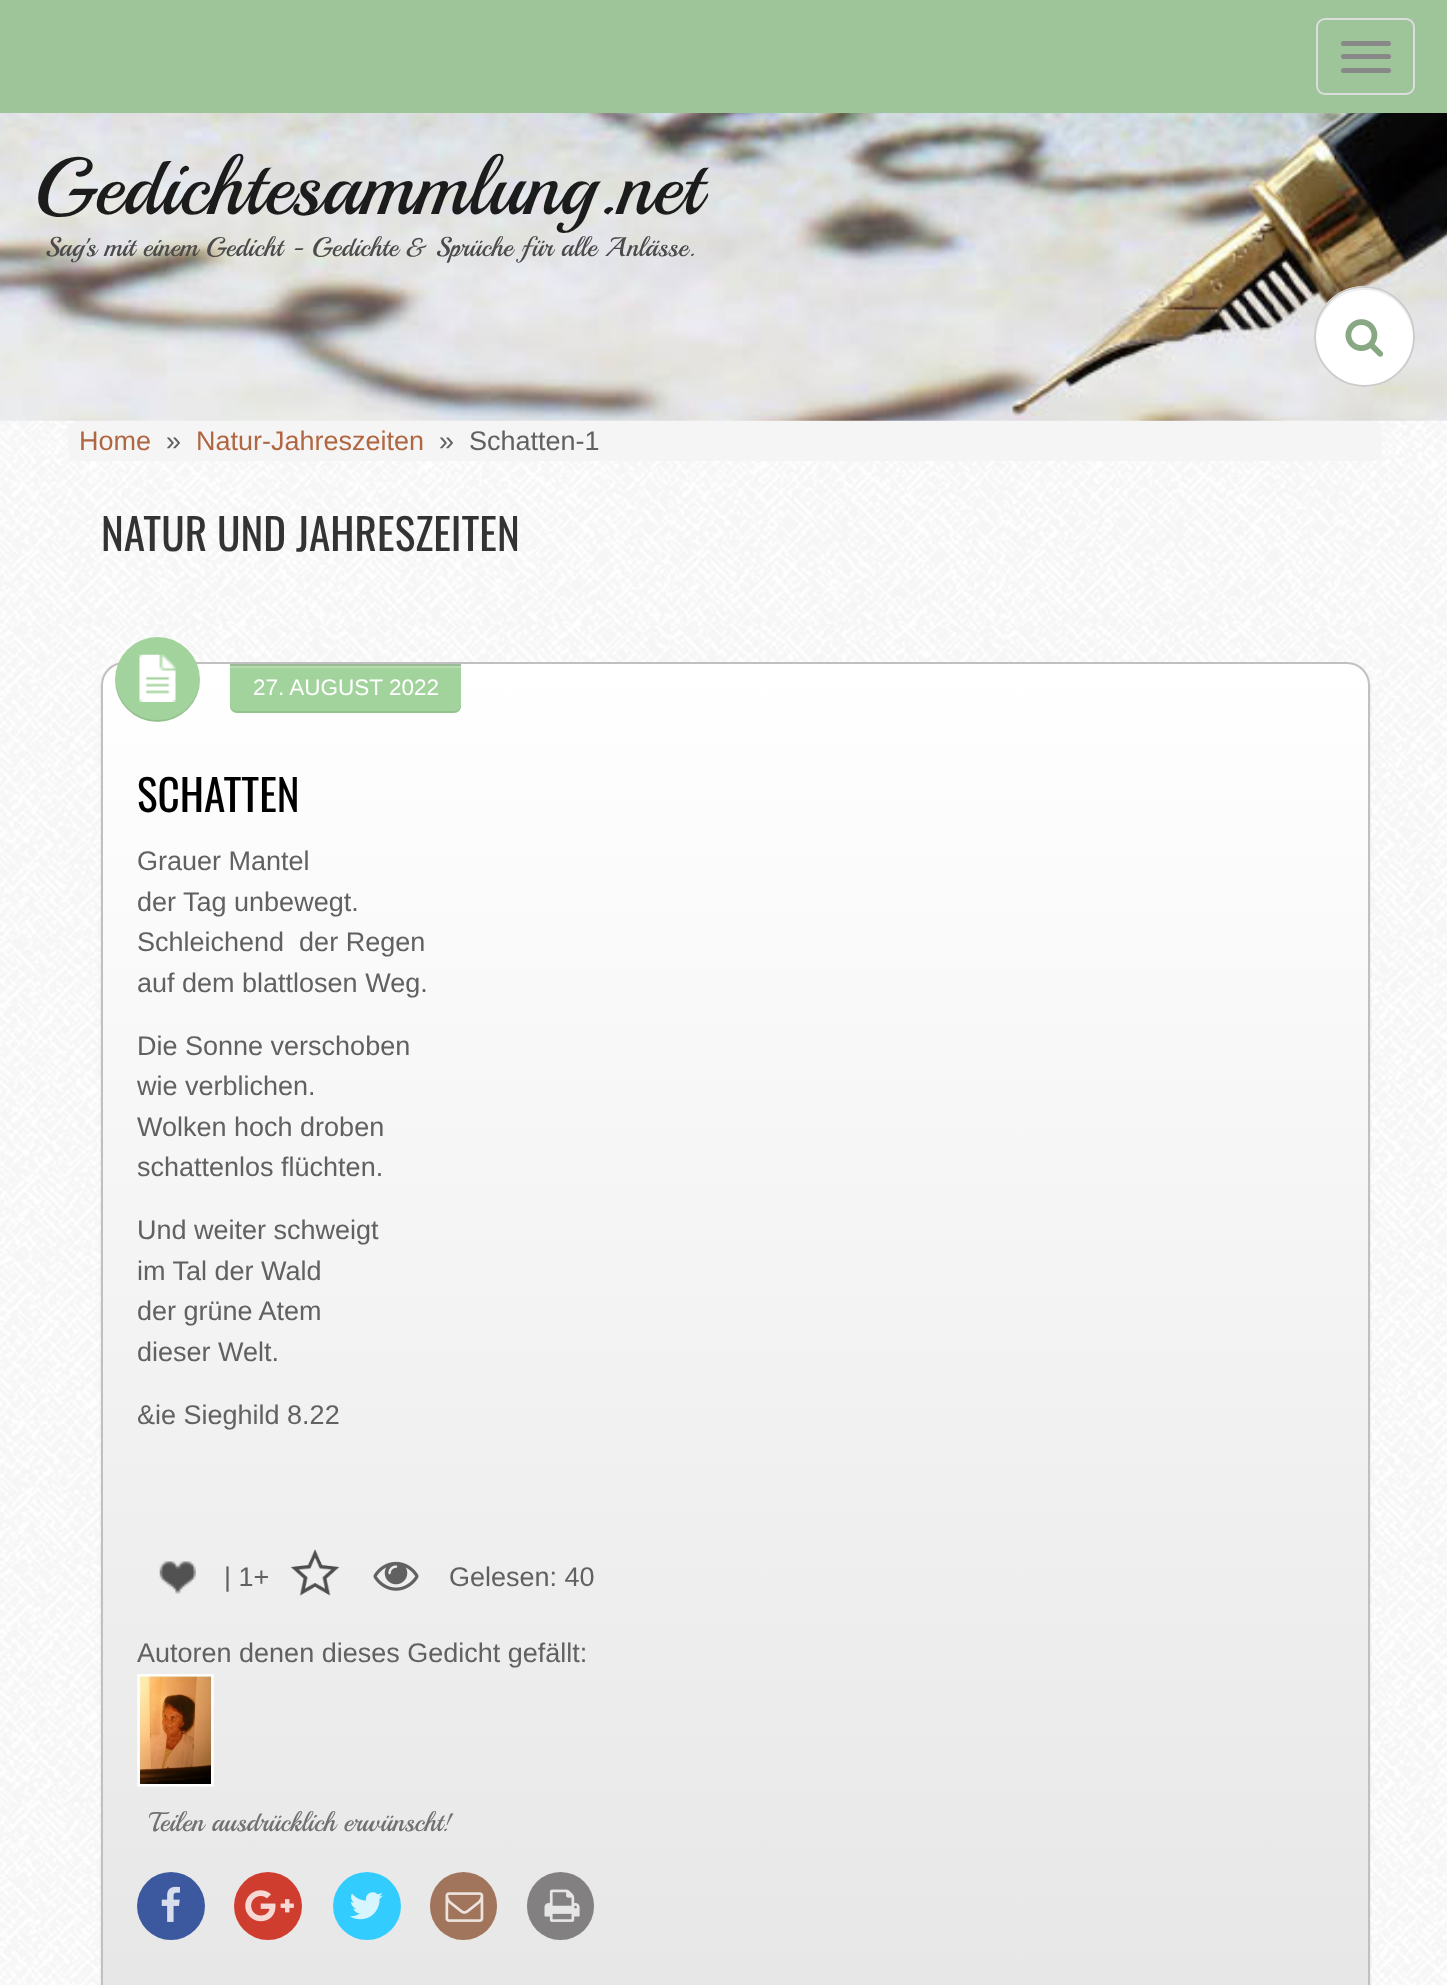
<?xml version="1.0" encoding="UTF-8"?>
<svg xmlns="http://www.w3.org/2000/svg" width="1447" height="1985">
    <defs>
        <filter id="blur1" x="-50%" y="-200%" width="200%" height="500%"><feGaussianBlur stdDeviation="1"/></filter>
        <clipPath id="clip1"><rect x="101" y="662" width="1269" height="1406" rx="23"/></clipPath>
        <linearGradient id="g1" gradientUnits="userSpaceOnUse" x1="736" y1="664" x2="736" y2="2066"><stop offset="0" stop-color="#FFFFFF" stop-opacity="0.1"/><stop offset="1" stop-color="#000000" stop-opacity="0.1"/></linearGradient>
    </defs>
    <rect width="100%" height="100%" fill="#FFFFFF"/>
    <image x="0" y="420" width="1447" height="1565" href="img_01.png"/>
    <rect x="0" y="0" width="1447" height="113" fill="#9EC499"/>
    <rect x="1317" y="19" width="97" height="75" rx="8" fill="none" stroke="#DDDDDD" stroke-width="2"/>
    <rect x="1341" y="41" width="50" height="5" rx="2.5" fill="#888888"/>
    <rect x="1341" y="54" width="50" height="5" rx="2.5" fill="#888888"/>
    <rect x="1341" y="68" width="50" height="5" rx="2.5" fill="#888888"/>
    <image x="0" y="113" width="1447" height="308" href="img_02.png"/>
    <text x="34" y="214" font-family="Playball" font-size="81" fill="#1C1C1C">Gedichtesammlung.net</text>
    <text x="45" y="256" font-family="Playball" font-size="27" fill="#4B4B4B">Sag's mit einem Gedicht - Gedichte &amp; Sprüche für alle Anlässe.</text>
    <circle cx="1364.5" cy="336.5" r="50.5" fill="#FFFFFF"/>
    <path d="M 1365 290 C 1391 290 1412 311 1413 338 C 1413 328 1410 318 1405 309 C 1378 270 1315 290 1316 338 C 1317 311 1338 290 1365 290 Z" fill="#ECECEC"/>
    <circle cx="1364.5" cy="336.5" r="49.5" fill="none" stroke="#CCCCCC" stroke-width="2"/>
    <image x="1345" y="319" width="39" height="38" href="img_03.png"/>
    <rect x="68" y="421" width="1314" height="40" rx="9" fill="#F5F5F5"/>
    <text x="79" y="450" font-family="Liberation Sans" font-size="27" fill="#B16642">Home</text>
    <text x="166" y="450" font-family="Liberation Sans" font-size="27" fill="#626161">»</text>
    <text x="196" y="450" font-family="Liberation Sans" font-size="27" fill="#B16642">Natur-Jahreszeiten</text>
    <text x="439" y="450" font-family="Liberation Sans" font-size="27" fill="#626161" xml:space="preserve">»  Schatten-1</text>
    <text x="101" y="551" font-family="Oswald" font-size="43.25" fill="#333333">NATUR UND JAHRESZEITEN</text>
    <rect x="101" y="664" width="1269" height="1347" rx="23" fill="#000000" fill-opacity="0.1" filter="url(#blur1)"/>
    <rect x="101" y="662" width="1269" height="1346" rx="23" fill="#FFFFFF"/>
    <g clip-path="url(#clip1)">
        <rect x="101" y="664" width="1269" height="1321" fill="url(#g1)"/>
    </g>
    <rect x="102" y="663" width="1267" height="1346" rx="22" fill="none" stroke="#C1BFBF" stroke-width="2"/>
    <circle cx="157.5" cy="679.5" r="42.5" fill="#A3D39C"/>
    <image x="139" y="654" width="37" height="48" href="img_04.png"/>
    <path d="M 200 678 C 199 702 181 720 158 720 C 134 720 116 702 115 678 C 115 687 117 696 122 703 C 146 738 201 720 200 678 Z" fill="#000000" fill-opacity="0.1"/>
    <path d="M 230 664 H 461 V 706 C 461 710 458 713 454 713 H 237 C 233 713 230 710 230 706 Z" fill="#A3D39C"/>
    <path d="M 230 704 V 706 C 230 710 233 713 237 713 H 454 C 458 713 461 710 461 706 V 704 C 461 708 458 711 454 711 H 236 C 233 711 230 708 230 704 Z" fill="#000000" fill-opacity="0.08"/>
    <rect x="230" y="664" width="231" height="2" fill="#82A97D"/>
    <rect x="230" y="664" width="231" height="4" fill="#FFFFFF" fill-opacity="0.2"/>
    <text x="253" y="695" font-family="Liberation Sans" font-size="22.5" fill="#FFFFFF">27. AUGUST 2022</text>
    <text x="137" y="812" font-family="Oswald" font-size="43.25" fill="#000000">SCHATTEN</text>
    <text font-family="Liberation Sans" font-size="27" fill="#626161" xml:space="preserve"><tspan x="137" y="870">Grauer Mantel</tspan><tspan x="137" y="911">der Tag unbewegt.</tspan><tspan x="137" y="951">Schleichend  der Regen</tspan><tspan x="137" y="992">auf dem blattlosen Weg.</tspan></text>
    <text font-family="Liberation Sans" font-size="27" fill="#626161">
        <tspan x="137" y="1055">Die Sonne verschoben</tspan>
        <tspan x="137" y="1095">wie verblichen.</tspan>
        <tspan x="137" y="1136">Wolken hoch droben</tspan>
        <tspan x="137" y="1176">schattenlos flüchten.</tspan>
    </text>
    <text font-family="Liberation Sans" font-size="27" fill="#626161">
        <tspan x="137" y="1239">Und weiter schweigt</tspan>
        <tspan x="137" y="1280">im Tal der Wald</tspan>
        <tspan x="137" y="1320">der grüne Atem</tspan>
        <tspan x="137" y="1361">dieser Welt.</tspan>
    </text>
    <text x="137" y="1424" font-family="Liberation Sans" font-size="27" fill="#626161">&amp;ie Sieghild 8.22</text>
    <image x="159" y="1561" width="37" height="33" href="img_05.png"/>
    <text x="224" y="1586" font-family="Liberation Sans" font-size="27" fill="#626161">| 1+</text>
    <image x="290" y="1549" width="50" height="47" href="img_06.png"/>
    <image x="373" y="1561" width="46" height="30" href="img_07.png"/>
    <text x="449" y="1586" font-family="Liberation Sans" font-size="27" fill="#626161">Gelesen: 40</text>
    <text x="137" y="1662" font-family="Liberation Sans" font-size="27" fill="#626161">Autoren denen dieses Gedicht gefällt:</text>
    <image x="137" y="1674" width="77" height="113" href="img_08.png"/>
    <text x="149" y="1831" font-family="Playball" font-size="27" fill="#727070">Teilen ausdrücklich erwünscht!</text>
    <circle cx="171" cy="1906" r="34" fill="#3C599F"/>
    <image x="161" y="1886" width="19" height="36" href="img_09.png"/>
    <circle cx="268" cy="1906" r="34" fill="#CF3D2E"/>
    <image x="245" y="1890" width="49" height="32" href="img_10.png"/>
    <circle cx="367" cy="1906" r="34" fill="#32CCFE"/>
    <image x="350" y="1892" width="33" height="28" href="img_11.png"/>
    <rect x="430" y="1872" width="67" height="68" rx="33.5" fill="#A1755C"/>
    <image x="445" y="1892" width="39" height="30" href="img_12.png"/>
    <rect x="527" y="1872" width="67" height="68" rx="33.5" fill="#828080"/>
    <image x="544" y="1889" width="36" height="33" href="img_13.png"/>
</svg>
